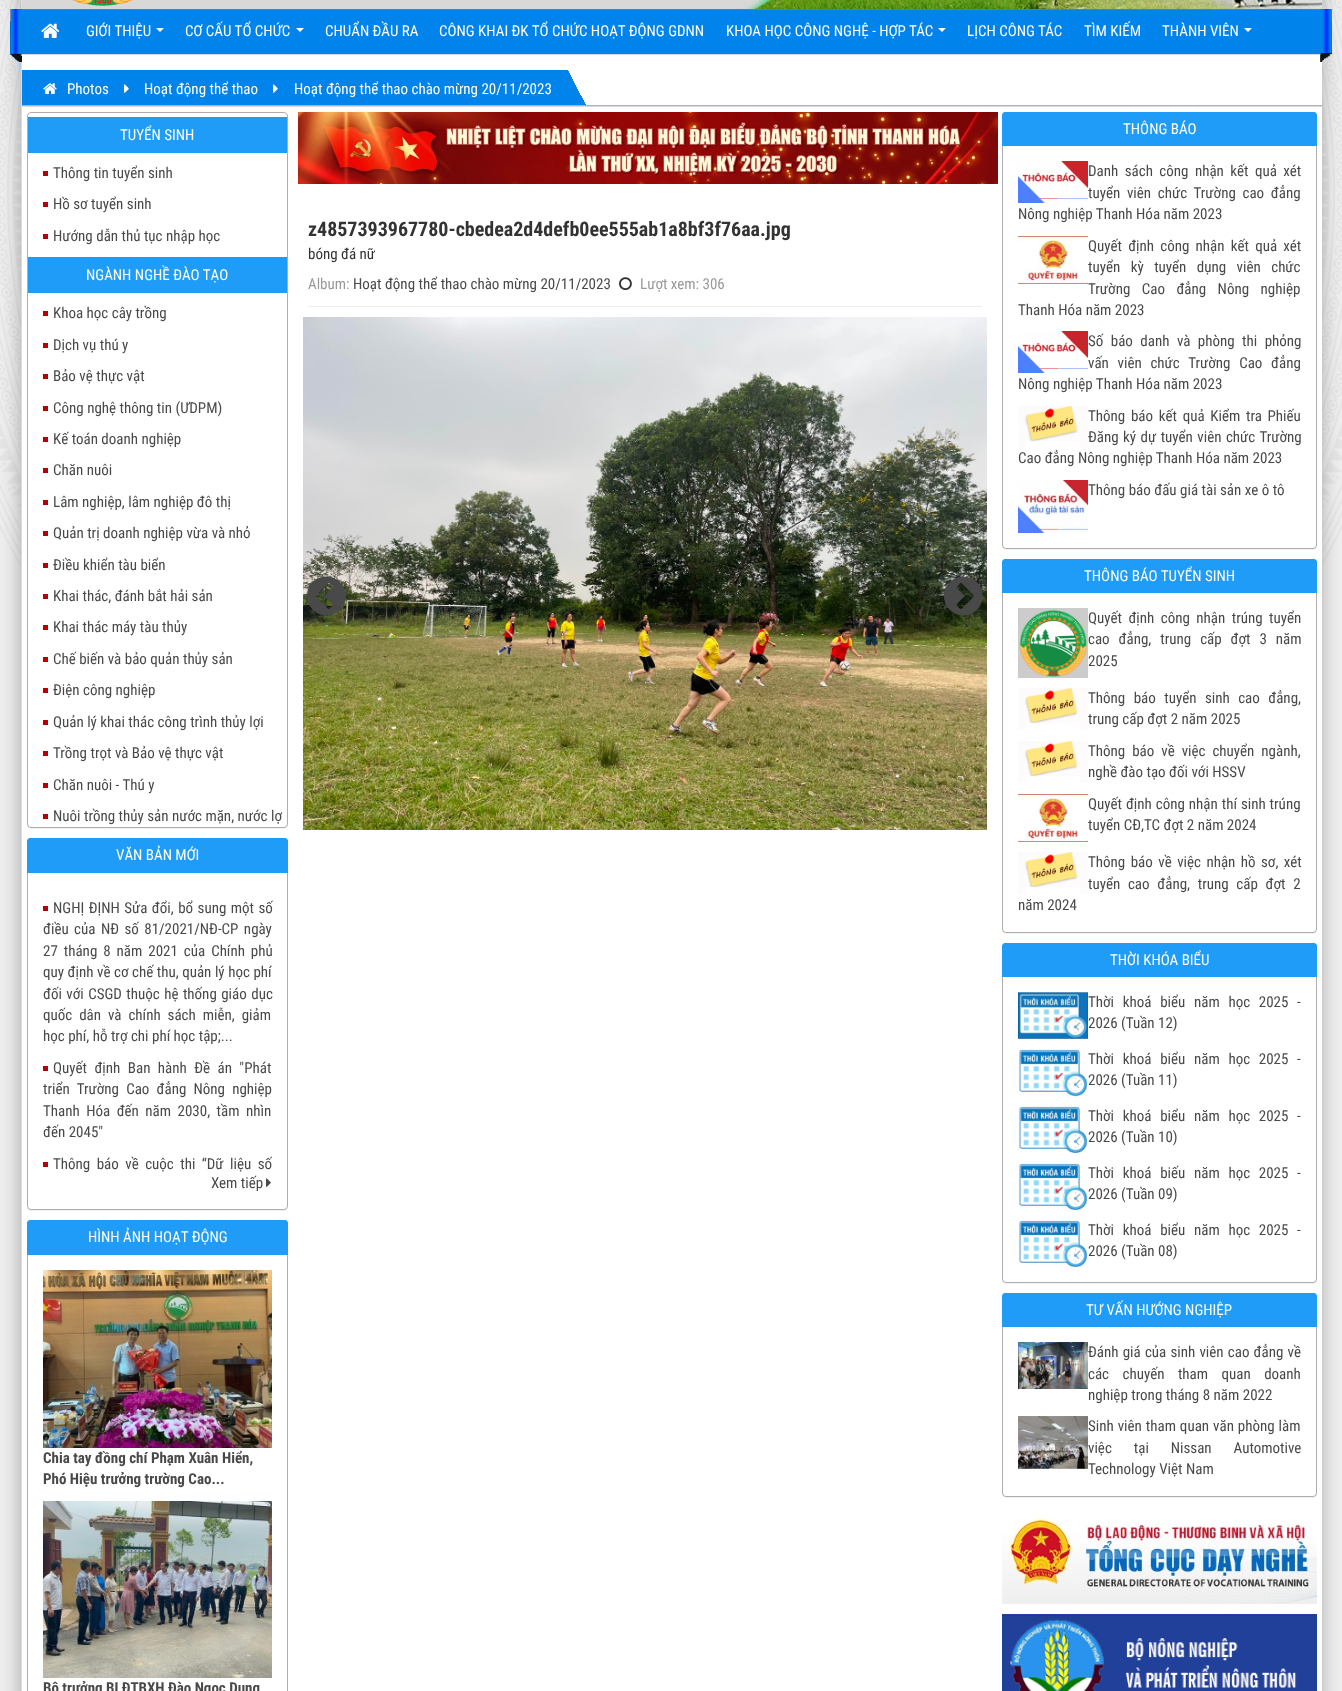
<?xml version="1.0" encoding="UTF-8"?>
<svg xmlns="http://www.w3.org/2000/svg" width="1342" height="1691">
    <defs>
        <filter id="blur1" x="-50%" y="-200%" width="200%" height="500%"><feGaussianBlur stdDeviation="10"/></filter>
        <filter id="blur2" x="-50%" y="-200%" width="200%" height="500%"><feGaussianBlur stdDeviation="0.5"/></filter>
    </defs>
    <rect width="100%" height="100%" fill="#EEEEEE"/>
    <image x="0" y="0" width="1342" height="568" href="img_01.png"/>
    <rect x="21" y="-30" width="1300" height="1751" fill="#000000" fill-opacity="0.3" filter="url(#blur1)"/>
    <rect x="21" y="0" width="1" height="1691" fill="#DCDCDC"/>
    <image x="22" y="0" width="1300" height="9" href="img_02.png"/>
    <image x="72" y="0" width="61" height="6" href="img_03.png"/>
    <rect x="22" y="10" width="1298" height="44" fill="#0083EB"/>
    <rect x="22" y="54" width="1298" height="1" fill="#C4DEF9"/>
    <rect x="22" y="9" width="1298" height="1" fill="#1A8FED"/>
    <image x="10" y="9" width="12" height="53" href="img_04.png"/>
    <image x="41" y="23" width="19" height="15" href="img_05.png"/>
    <text x="86" y="36" font-family="Roboto Condensed" font-size="15" fill="#FFFFFF">GIỚI THIỆU</text>
    <path d="M 156 28 H 164 L 160 32 Z" fill="#FFFFFF"/>
    <text x="185" y="36" font-family="Roboto Condensed" font-size="15" fill="#FFFFFF">CƠ CẤU TỔ CHỨC</text>
    <path d="M 296 28 H 304 L 300 32 Z" fill="#FFFFFF"/>
    <text x="325" y="36" font-family="Roboto Condensed" font-size="15" fill="#FFFFFF">CHUẨN ĐẦU RA</text>
    <text x="439" y="36" font-family="Roboto Condensed" font-size="15" fill="#FFFFFF">CÔNG KHAI ĐK TỔ CHỨC HOẠT ĐỘNG GDNN</text>
    <text x="726" y="36" font-family="Roboto Condensed" font-size="15" fill="#FFFFFF">KHOA HỌC CÔNG NGHỆ - HỢP TÁC</text>
    <path d="M 938 28 H 946 L 942 32 Z" fill="#FFFFFF"/>
    <text x="967" y="36" font-family="Roboto Condensed" font-size="15" fill="#FFFFFF">LỊCH CÔNG TÁC</text>
    <text x="1084" y="36" font-family="Roboto Condensed" font-size="15" fill="#FFFFFF">TÌM KIẾM</text>
    <text x="1162" y="36" font-family="Roboto Condensed" font-size="15" fill="#FFFFFF">THÀNH VIÊN</text>
    <path d="M 1244 28 H 1252 L 1248 32 Z" fill="#FFFFFF"/>
    <rect x="22" y="55" width="1300" height="50" fill="#FFFFFF"/>
    <image x="1320" y="9" width="12" height="53" href="img_06.png"/>
    <rect x="22" y="106" width="1300" height="1" fill="#D9D9DD"/>
    <rect x="22" y="105" width="1300" height="1" fill="#B1B1B8"/>
    <image x="566" y="70" width="20" height="35" href="img_07.png"/>
    <rect x="22" y="70" width="544" height="35" fill="#0083EB"/>
    <image x="43" y="83" width="14" height="11" href="img_08.png"/>
    <text x="67" y="94" font-family="Roboto Condensed" font-size="15" fill="#FFFFFF">Photos</text>
    <image x="124" y="84" width="5" height="9" href="img_09.png"/>
    <text x="144" y="94" font-family="Roboto Condensed" font-size="15" fill="#FFFFFF">Hoạt động thể thao</text>
    <image x="273" y="84" width="5" height="9" href="img_09.png"/>
    <text x="294" y="94" font-family="Roboto Condensed" font-size="15" fill="#FFFFFF">Hoạt động thể thao chào mừng 20/11/2023</text>
    <rect x="22" y="107" width="1300" height="1584" fill="#FFFFFF"/>
    <rect x="27" y="113" width="261" height="716" rx="4" fill="#000000" fill-opacity="0.05" filter="url(#blur2)"/>
    <rect x="27.5" y="112.5" width="260" height="715" rx="3.5" fill="#FFFFFF" stroke="#ADADAD"/>
    <rect x="28" y="117" width="259" height="36" fill="#1F9CF8"/>
    <text x="120" y="140" font-family="Roboto Condensed" font-size="15" fill="#FFFFFF">TUYỂN SINH</text>
    <rect x="43" y="171" width="5" height="5" fill="#B70002"/>
    <text x="53" y="178" font-family="Roboto Condensed" font-size="15" fill="#494949">Thông tin tuyển sinh</text>
    <rect x="43" y="202" width="5" height="5" fill="#B70002"/>
    <text x="53" y="209" font-family="Roboto Condensed" font-size="15" fill="#494949">Hồ sơ tuyển sinh</text>
    <rect x="43" y="234" width="5" height="5" fill="#B70002"/>
    <text x="53" y="241" font-family="Roboto Condensed" font-size="15" fill="#494949">Hướng dẫn thủ tục nhập học</text>
    <rect x="28" y="257" width="259" height="36" fill="#1F9CF8"/>
    <text x="86" y="280" font-family="Roboto Condensed" font-size="15" fill="#FFFFFF">NGÀNH NGHỀ ĐÀO TẠO</text>
    <rect x="43" y="311" width="5" height="5" fill="#B70002"/>
    <text x="53" y="318" font-family="Roboto Condensed" font-size="15" fill="#494949">Khoa học cây trồng</text>
    <rect x="43" y="343" width="5" height="5" fill="#B70002"/>
    <text x="53" y="350" font-family="Roboto Condensed" font-size="15" fill="#494949">Dịch vụ thú y</text>
    <rect x="43" y="374" width="5" height="5" fill="#B70002"/>
    <text x="53" y="381" font-family="Roboto Condensed" font-size="15" fill="#494949">Bảo vệ thực vật</text>
    <rect x="43" y="406" width="5" height="5" fill="#B70002"/>
    <text x="53" y="413" font-family="Roboto Condensed" font-size="15" fill="#494949">Công nghệ thông tin (ƯDPM)</text>
    <rect x="43" y="437" width="5" height="5" fill="#B70002"/>
    <text x="53" y="444" font-family="Roboto Condensed" font-size="15" fill="#494949">Kế toán doanh nghiệp</text>
    <rect x="43" y="468" width="5" height="5" fill="#B70002"/>
    <text x="53" y="475" font-family="Roboto Condensed" font-size="15" fill="#494949">Chăn nuôi</text>
    <rect x="43" y="500" width="5" height="5" fill="#B70002"/>
    <text x="53" y="507" font-family="Roboto Condensed" font-size="15" fill="#494949">Lâm nghiệp, lâm nghiệp đô thị</text>
    <rect x="43" y="531" width="5" height="5" fill="#B70002"/>
    <text x="53" y="538" font-family="Roboto Condensed" font-size="15" fill="#494949">Quản trị doanh nghiệp vừa và nhỏ</text>
    <rect x="43" y="563" width="5" height="5" fill="#B70002"/>
    <text x="53" y="570" font-family="Roboto Condensed" font-size="15" fill="#494949">Điều khiển tàu biển</text>
    <rect x="43" y="594" width="5" height="5" fill="#B70002"/>
    <text x="53" y="601" font-family="Roboto Condensed" font-size="15" fill="#494949">Khai thác, đánh bắt hải sản</text>
    <rect x="43" y="625" width="5" height="5" fill="#B70002"/>
    <text x="53" y="632" font-family="Roboto Condensed" font-size="15" fill="#494949">Khai thác máy tàu thủy</text>
    <rect x="43" y="657" width="5" height="5" fill="#B70002"/>
    <text x="53" y="664" font-family="Roboto Condensed" font-size="15" fill="#494949">Chế biến và bảo quản thủy sản</text>
    <rect x="43" y="688" width="5" height="5" fill="#B70002"/>
    <text x="53" y="695" font-family="Roboto Condensed" font-size="15" fill="#494949">Điện công nghiệp</text>
    <rect x="43" y="720" width="5" height="5" fill="#B70002"/>
    <text x="53" y="727" font-family="Roboto Condensed" font-size="15" fill="#494949">Quản lý khai thác công trình thủy lợi</text>
    <rect x="43" y="751" width="5" height="5" fill="#B70002"/>
    <text x="53" y="758" font-family="Roboto Condensed" font-size="15" fill="#494949">Trồng trọt và Bảo vệ thực vật</text>
    <rect x="43" y="783" width="5" height="5" fill="#B70002"/>
    <text x="53" y="790" font-family="Roboto Condensed" font-size="15" fill="#494949">Chăn nuôi - Thú y</text>
    <rect x="43" y="814" width="5" height="5" fill="#B70002"/>
    <text x="53" y="821" font-family="Roboto Condensed" font-size="15" fill="#494949">Nuôi trồng thủy sản nước mặn, nước lợ</text>
    <rect x="27" y="839" width="261" height="372" rx="4" fill="#000000" fill-opacity="0.05" filter="url(#blur2)"/>
    <rect x="27.5" y="838.5" width="260" height="371" rx="3.5" fill="#FFFFFF" stroke="#ADADAD"/>
    <path d="M 30 838 H 285 C 286.5 838 288 839.5 288 841 V 873 H 27 V 841 C 27 839.5 28.5 838 30 838 Z" fill="#1F9CF8"/>
    <text x="116" y="860" font-family="Roboto Condensed" font-size="15" fill="#FFFFFF">VĂN BẢN MỚI</text>
    <rect x="43" y="906" width="5" height="5" fill="#B70002"/>
    <text x="53" y="913" word-spacing="1" font-family="Roboto Condensed" font-size="15" fill="#494949">NGHỊ ĐỊNH Sửa đổi, bổ sung một số</text>
    <text font-family="Roboto Condensed" font-size="15" fill="#494949">
        <tspan x="43" y="934" word-spacing="2">điều của NĐ số 81/2021/NĐ-CP ngày</tspan>
        <tspan x="43" y="956" word-spacing="2.5">27 tháng 8 năm 2021 của Chính phủ</tspan>
        <tspan x="43" y="977" word-spacing="0.1">quy định về cơ chế thu, quản lý học phí</tspan>
        <tspan x="43" y="999" word-spacing="1">đối với CSGD thuộc hệ thống giáo dục</tspan>
        <tspan x="43" y="1020" word-spacing="3.5">quốc dân</tspan>
    </text>
    <text x="108" y="1020" word-spacing="3.5" font-family="Roboto Condensed" font-size="15" fill="#494949">và chính sách miễn, giảm</text>
    <text x="43" y="1041" font-family="Roboto Condensed" font-size="15" fill="#494949">học phí, hỗ trợ chi phí học tập;...</text>
    <rect x="43" y="1066" width="5" height="5" fill="#B70002"/>
    <text x="53" y="1073" word-spacing="4" font-family="Roboto Condensed" font-size="15" fill="#494949">Quyết định Ban hành Đề án "Phát</text>
    <text font-family="Roboto Condensed" font-size="15" fill="#494949">
        <tspan x="43" y="1094" word-spacing="3.75">triển Trường Cao đẳng Nông nghiệp</tspan>
        <tspan x="43" y="1116" word-spacing="3">Thanh Hóa đến năm 2030, tầm nhìn</tspan>
        <tspan x="43" y="1137">đến 2045"</tspan>
    </text>
    <rect x="43" y="1162" width="5" height="5" fill="#B70002"/>
    <text x="53" y="1169" word-spacing="3" font-family="Roboto Condensed" font-size="15" fill="#494949">Thông báo về cuộc thi “Dữ liệu số</text>
    <text x="211" y="1188" font-family="Roboto Condensed" font-size="15" fill="#494949">Xem tiếp</text>
    <image x="266" y="1178" width="5" height="9" href="img_10.png"/>
    <rect x="27.5" y="1220.5" width="260" height="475" rx="3.5" fill="none" stroke="#ADADAD"/>
    <path d="M 30 1220 H 285 C 286.5 1220 288 1221.5 288 1223 V 1255 H 27 V 1223 C 27 1221.5 28.5 1220 30 1220 Z" fill="#1F9CF8"/>
    <text x="88" y="1242" font-family="Roboto Condensed" font-size="15" fill="#FFFFFF">HÌNH ẢNH HOẠT ĐỘNG</text>
    <image x="43" y="1270" width="229" height="178" href="img_11.png"/>
    <text font-family="Roboto Condensed" font-size="15" font-weight="700" fill="#494949">
        <tspan x="43" y="1463">Chia tay đồng chí Phạm Xuân Hiển,</tspan>
        <tspan x="43" y="1484">Phó Hiệu trưởng trường Cao...</tspan>
    </text>
    <image x="43" y="1501" width="229" height="177" href="img_12.png"/>
    <text x="43" y="1693" font-family="Roboto Condensed" font-size="15" font-weight="700" fill="#494949">Bộ trưởng BLĐTBXH Đào Ngọc Dung</text>
    <image x="298" y="112" width="700" height="72" href="img_13.png"/>
    <rect x="308" y="306" width="674" height="1" fill="#EEEEEE"/>
    <text x="308" y="236" font-family="Roboto Condensed" font-size="20" font-weight="700" fill="#333333">z4857393967780-cbedea2d4defb0ee555ab1a8bf3f76aa.jpg</text>
    <text x="308" y="259" font-family="Roboto Condensed" font-size="15" fill="#333333">bóng đá nữ</text>
    <text x="308" y="289" font-family="Roboto Condensed" font-size="15" fill="#999999">Album:</text>
    <text x="353" y="289" font-family="Roboto Condensed" font-size="15" fill="#494949">Hoạt động thể thao chào mừng 20/11/2023</text>
    <image x="619" y="277" width="13" height="14" href="img_14.png"/>
    <text x="640" y="289" font-family="Roboto Condensed" font-size="15" fill="#999999">Lượt xem: 306</text>
    <image x="303" y="317" width="684" height="513" href="img_15.png"/>
    <image x="307" y="576" width="39" height="40" href="img_16.png"/>
    <image x="944" y="576" width="39" height="40" href="img_17.png"/>
    <rect x="1002" y="113" width="315" height="437" rx="4" fill="#000000" fill-opacity="0.05" filter="url(#blur2)"/>
    <rect x="1002.5" y="112.5" width="314" height="436" rx="3.5" fill="#FFFFFF" stroke="#ADADAD"/>
    <path d="M 1005 112 H 1314 C 1315.5 112 1317 113.5 1317 115 V 146 H 1002 V 115 C 1002 113.5 1003.5 112 1005 112 Z" fill="#1F9CF8"/>
    <text x="1123" y="134" font-family="Roboto Condensed" font-size="15" fill="#FFFFFF">THÔNG BÁO</text>
    <image x="1018" y="161" width="70" height="42" href="img_18.png"/>
    <text font-family="Roboto Condensed" font-size="15" fill="#494949">
        <tspan x="1088" y="176" word-spacing="3">Danh sách công nhận kết quả xét</tspan>
        <tspan x="1088" y="198" word-spacing="3.25">tuyển viên chức Trường cao đẳng</tspan>
    </text>
    <text x="1018" y="219" font-family="Roboto Condensed" font-size="15" fill="#494949">Nông nghiệp Thanh Hóa năm 2023</text>
    <image x="1018" y="236" width="70" height="48" href="img_19.png"/>
    <text font-family="Roboto Condensed" font-size="15" fill="#494949">
        <tspan x="1088" y="251" word-spacing="2.75">Quyết định công nhận kết quả xét</tspan>
        <tspan x="1088" y="272" word-spacing="7">tuyển kỳ tuyển dụng viên chức</tspan>
        <tspan x="1088" y="294" word-spacing="8">Trường Cao đẳng Nông nghiệp</tspan>
    </text>
    <text x="1018" y="315" font-family="Roboto Condensed" font-size="15" fill="#494949">Thanh Hóa năm 2023</text>
    <image x="1018" y="331" width="70" height="42" href="img_20.png"/>
    <text font-family="Roboto Condensed" font-size="15" fill="#494949">
        <tspan x="1088" y="346" word-spacing="4">Số báo danh và phòng thi phỏng</tspan>
        <tspan x="1088" y="368" word-spacing="5.25">vấn viên chức Trường Cao đẳng</tspan>
    </text>
    <text x="1018" y="389" font-family="Roboto Condensed" font-size="15" fill="#494949">Nông nghiệp Thanh Hóa năm 2023</text>
    <image x="1018" y="406" width="70" height="42" href="img_21.png"/>
    <text font-family="Roboto Condensed" font-size="15" fill="#494949">
        <tspan x="1088" y="421" word-spacing="2.25">Thông báo kết quả Kiểm tra Phiếu</tspan>
        <tspan x="1088" y="442" word-spacing="1">Đăng ký dự tuyển viên chức Trường</tspan>
    </text>
    <text x="1018" y="463" font-family="Roboto Condensed" font-size="15" fill="#494949">Cao đẳng Nông nghiệp Thanh Hóa năm 2023</text>
    <image x="1018" y="480" width="70" height="53" href="img_22.png"/>
    <text x="1088" y="495" font-family="Roboto Condensed" font-size="15" fill="#494949">Thông báo đấu giá tài sản xe ô tô</text>
    <rect x="1002" y="560" width="315" height="374" rx="4" fill="#000000" fill-opacity="0.05" filter="url(#blur2)"/>
    <rect x="1002.5" y="559.5" width="314" height="373" rx="3.5" fill="#FFFFFF" stroke="#ADADAD"/>
    <path d="M 1005 559 H 1314 C 1315.5 559 1317 560.5 1317 562 V 593 H 1002 V 562 C 1002 560.5 1003.5 559 1005 559 Z" fill="#1F9CF8"/>
    <text x="1084" y="581" font-family="Roboto Condensed" font-size="15" fill="#FFFFFF">THÔNG BÁO TUYỂN SINH</text>
    <rect x="1018" y="608" width="70" height="70" fill="#CCCCCC"/>
    <image x="1019" y="609" width="68" height="68" href="img_23.png"/>
    <text font-family="Roboto Condensed" font-size="15" fill="#494949">
        <tspan x="1088" y="623" word-spacing="3">Quyết định công nhận trúng tuyển</tspan>
        <tspan x="1088" y="644" word-spacing="5.5">cao đẳng, trung cấp đợt 3 năm</tspan>
        <tspan x="1088" y="666">2025</tspan>
    </text>
    <image x="1018" y="688" width="70" height="42" href="img_21.png"/>
    <text font-family="Roboto Condensed" font-size="15" fill="#494949">
        <tspan x="1088" y="703" word-spacing="5">Thông báo tuyển sinh cao đẳng,</tspan>
        <tspan x="1088" y="724">trung cấp đợt 2 năm 2025</tspan>
    </text>
    <image x="1018" y="741" width="70" height="42" href="img_21.png"/>
    <text font-family="Roboto Condensed" font-size="15" fill="#494949">
        <tspan x="1088" y="756" word-spacing="3.5">Thông báo về việc chuyển ngành,</tspan>
        <tspan x="1088" y="777">nghề đào tạo đối với HSSV</tspan>
    </text>
    <image x="1018" y="794" width="70" height="48" href="img_19.png"/>
    <text font-family="Roboto Condensed" font-size="15" fill="#494949">
        <tspan x="1088" y="809" word-spacing="0.5">Quyết định công nhận thí sinh trúng</tspan>
        <tspan x="1088" y="830">tuyển CĐ,TC đợt 2 năm 2024</tspan>
    </text>
    <image x="1018" y="852" width="70" height="42" href="img_21.png"/>
    <text font-family="Roboto Condensed" font-size="15" fill="#494949">
        <tspan x="1088" y="867" word-spacing="2">Thông báo về việc nhận hồ sơ, xét</tspan>
        <tspan x="1088" y="889" word-spacing="4.25">tuyển cao đẳng, trung cấp đợt 2</tspan>
    </text>
    <text x="1018" y="910" font-family="Roboto Condensed" font-size="15" fill="#494949">năm 2024</text>
    <rect x="1002" y="944" width="315" height="340" rx="4" fill="#000000" fill-opacity="0.05" filter="url(#blur2)"/>
    <rect x="1002.5" y="943.5" width="314" height="339" rx="3.5" fill="#FFFFFF" stroke="#ADADAD"/>
    <path d="M 1005 943 H 1314 C 1315.5 943 1317 944.5 1317 946 V 977 H 1002 V 946 C 1002 944.5 1003.5 943 1005 943 Z" fill="#1F9CF8"/>
    <text x="1110" y="965" font-family="Roboto Condensed" font-size="15" fill="#FFFFFF">THỜI KHÓA BIỂU</text>
    <image x="1018" y="992" width="70" height="47" href="img_24.png"/>
    <text font-family="Roboto Condensed" font-size="15" fill="#494949">
        <tspan x="1088" y="1007" word-spacing="5.25">Thời khoá biểu năm học 2025 -</tspan>
        <tspan x="1088" y="1028">2026 (Tuần 12)</tspan>
    </text>
    <image x="1018" y="1049" width="70" height="47" href="img_25.png"/>
    <text font-family="Roboto Condensed" font-size="15" fill="#494949">
        <tspan x="1088" y="1064" word-spacing="5.25">Thời khoá biểu năm học 2025 -</tspan>
        <tspan x="1088" y="1085">2026 (Tuần 11)</tspan>
    </text>
    <image x="1018" y="1106" width="70" height="47" href="img_26.png"/>
    <text font-family="Roboto Condensed" font-size="15" fill="#494949">
        <tspan x="1088" y="1121" word-spacing="5.25">Thời khoá biểu năm học 2025 -</tspan>
        <tspan x="1088" y="1142">2026 (Tuần 10)</tspan>
    </text>
    <image x="1018" y="1163" width="70" height="47" href="img_26.png"/>
    <text font-family="Roboto Condensed" font-size="15" fill="#494949">
        <tspan x="1088" y="1178" word-spacing="5.25">Thời khoá biếu năm học 2025 -</tspan>
        <tspan x="1088" y="1199">2026 (Tuần 09)</tspan>
    </text>
    <image x="1018" y="1220" width="70" height="47" href="img_26.png"/>
    <text font-family="Roboto Condensed" font-size="15" fill="#494949">
        <tspan x="1088" y="1235" word-spacing="5.25">Thời khoá biểu năm học 2025 -</tspan>
        <tspan x="1088" y="1256">2026 (Tuần 08)</tspan>
    </text>
    <rect x="1002" y="1294" width="315" height="204" rx="4" fill="#000000" fill-opacity="0.05" filter="url(#blur2)"/>
    <rect x="1002.5" y="1293.5" width="314" height="203" rx="3.5" fill="#FFFFFF" stroke="#ADADAD"/>
    <path d="M 1005 1293 H 1314 C 1315.5 1293 1317 1294.5 1317 1296 V 1327 H 1002 V 1296 C 1002 1294.5 1003.5 1293 1005 1293 Z" fill="#1F9CF8"/>
    <text x="1086" y="1315" font-family="Roboto Condensed" font-size="15" fill="#FFFFFF">TƯ VẤN HƯỚNG NGHIỆP</text>
    <image x="1018" y="1342" width="70" height="47" href="img_27.png"/>
    <text font-family="Roboto Condensed" font-size="15" fill="#494949">
        <tspan x="1088" y="1357" word-spacing="0.75">Đánh giá của sinh viên cao đẳng về</tspan>
        <tspan x="1088" y="1379" word-spacing="10">các chuyến tham quan doanh</tspan>
        <tspan x="1088" y="1400">nghiệp trong tháng 8 năm 2022</tspan>
    </text>
    <image x="1018" y="1416" width="70" height="53" href="img_28.png"/>
    <text font-family="Roboto Condensed" font-size="15" fill="#494949">
        <tspan x="1088" y="1431" word-spacing="0.5">Sinh viên tham quan văn phòng làm</tspan>
        <tspan x="1088" y="1453" word-spacing="18.5">việc tại Nissan Automotive</tspan>
        <tspan x="1088" y="1474">Technology Việt Nam</tspan>
    </text>
    <image x="1002" y="1517" width="315" height="87" href="img_29.png"/>
    <image x="1002" y="1614" width="315" height="77" href="img_30.png"/>
</svg>
